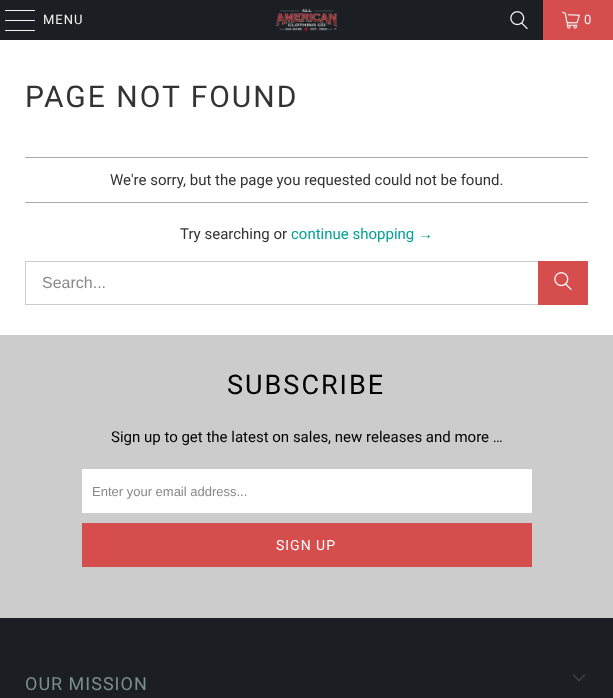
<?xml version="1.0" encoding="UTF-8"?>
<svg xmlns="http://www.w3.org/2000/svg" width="613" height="698">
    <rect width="100%" height="100%" fill="#FFFFFF"/>
    <rect x="0" y="0" width="543" height="40" fill="#1B1F23"/>
    <rect x="5" y="10" width="30" height="1" rx="0.5" fill="#F4F4F4"/>
    <rect x="5" y="20" width="30" height="1" rx="0.5" fill="#F4F4F4"/>
    <rect x="5" y="30" width="30" height="1" rx="0.5" fill="#F4F4F4"/>
    <text x="43" y="24" font-family="Roboto" font-size="13" letter-spacing="1" fill="#F4F4F4">MENU</text>
    <image x="275" y="8" width="63" height="24" href="img_01.png"/>
    <image x="510" y="11" width="18" height="19" href="img_02.png"/>
    <rect x="543" y="0" width="70" height="40" fill="#D54D4D"/>
    <image x="562" y="11" width="18" height="18" href="img_03.png"/>
    <text x="584" y="24" font-family="Roboto" font-size="13" letter-spacing="1" fill="#F4F4F4">0</text>
    <text x="25" y="107" font-family="Roboto" font-size="30" letter-spacing="2" fill="#333333">PAGE NOT FOUND</text>
    <rect x="25" y="157" width="563" height="1" fill="#AAAAAA"/>
    <rect x="25" y="202" width="563" height="1" fill="#AAAAAA"/>
    <text x="110" y="185" font-family="Roboto" font-size="15" fill="#333333">We're sorry, but the page you requested could not be found.</text>
    <text x="180" y="239" font-family="Roboto" font-size="15" fill="#333333">Try searching or</text>
    <text x="291" y="239" font-family="Roboto" font-size="15" fill="#03A196">continue shopping</text>
    <text x="418" y="239" font-family="Liberation Sans" font-size="15" fill="#03A196">→</text>
    <rect x="25.5" y="261.5" width="562" height="43" fill="none" stroke="#CCCCCC"/>
    <text x="42" y="288" font-family="Liberation Sans" font-size="16" fill="#888888">Search...</text>
    <rect x="538" y="261" width="50" height="44" fill="#D54D4D"/>
    <image x="554" y="272" width="18" height="19" href="img_04.png"/>
    <rect x="0" y="335" width="613" height="283" fill="#CCCCCC"/>
    <text x="227" y="394" font-family="Roboto" font-size="27" letter-spacing="2" fill="#000000">SUBSCRIBE</text>
    <text x="111" y="442" font-family="Roboto" font-size="15" fill="#000000">Sign up to get the latest on sales, new releases and more …</text>
    <rect x="82" y="469" width="450" height="44" fill="#FFFFFF"/>
    <text x="92" y="496" font-family="Liberation Sans" font-size="13" fill="#888888">Enter your email address...</text>
    <rect x="82" y="523" width="450" height="44" fill="#D54D4D"/>
    <text x="276" y="550" font-family="Roboto" font-size="14" letter-spacing="1" fill="#FFFFFF">SIGN UP</text>
    <rect x="0" y="618" width="613" height="80" fill="#1B1F23"/>
    <text x="25" y="690" font-family="Roboto" font-size="18" letter-spacing="1" fill="#7F8C8D">OUR MISSION</text>
    <image x="573" y="674" width="12" height="7" href="img_05.png"/>
</svg>
